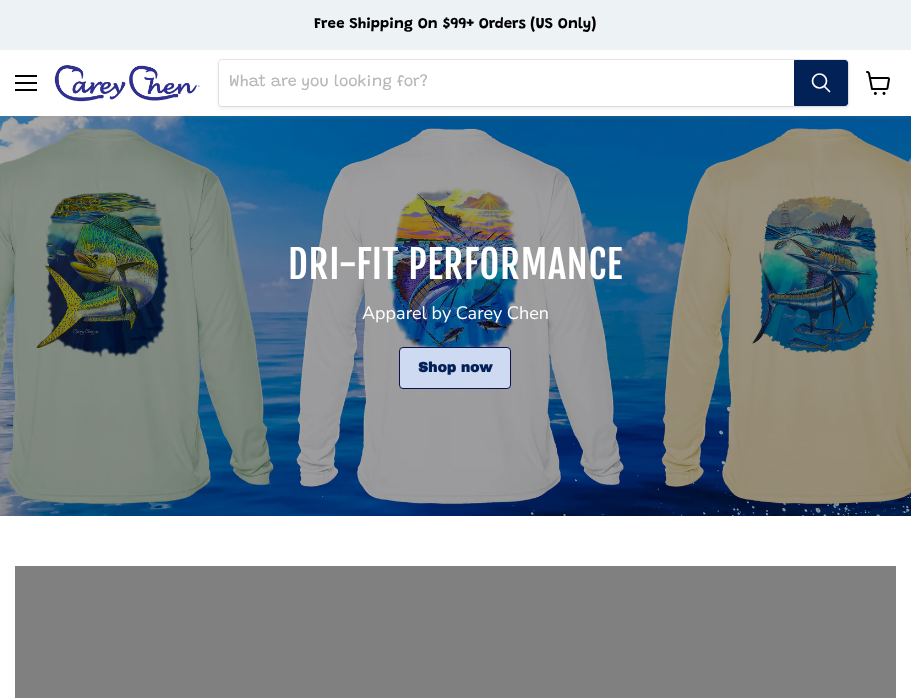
<?xml version="1.0" encoding="UTF-8"?>
<svg xmlns="http://www.w3.org/2000/svg" width="911" height="698">
    <defs>
        <clipPath id="clip1"><rect x="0" y="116" width="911" height="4"/></clipPath>
        <filter id="blur1" x="-50%" y="-200%" width="200%" height="500%"><feGaussianBlur stdDeviation="2"/></filter>
        <filter id="blur2" x="-50%" y="-200%" width="200%" height="500%"><feGaussianBlur stdDeviation="1.5"/></filter>
        <clipPath id="clip2"><rect x="229" y="74" width="555" height="16"/></clipPath>
    </defs>
    <rect width="100%" height="100%" fill="#FFFFFF"/>
    <image x="0" y="116" width="911" height="400" href="img_03.png"/>
    <g clip-path="url(#clip1)">
        <rect x="0" y="51" width="911" height="66" fill="#808080" fill-opacity="0.25" filter="url(#blur1)"/>
    </g>
    <rect x="0" y="0" width="911" height="50" fill="#EDF2F5"/>
    <text x="314" y="28" font-family="Grandstander" font-size="15" font-weight="700" fill="#000000">Free Shipping On $99+ Orders (US Only)</text>
    <rect x="15" y="75" width="22" height="2" fill="#000000"/>
    <rect x="15" y="82" width="22" height="2" fill="#000000"/>
    <rect x="15" y="89" width="22" height="2" fill="#000000"/>
    <image x="54" y="65" width="146" height="37" href="img_01.png"/>
    <rect x="218" y="61" width="631" height="48" rx="4" fill="#808080" fill-opacity="0.11" filter="url(#blur2)"/>
    <rect x="218.5" y="59.5" width="630" height="47" rx="3.5" fill="none" stroke="#808080" stroke-opacity="0.2"/>
    <path d="M 222 60 H 794 V 106 H 222 C 220.5 106 219 104.5 219 103 V 63 C 219 61.5 220.5 60 222 60 Z" fill="#FFFFFF"/>
    <g clip-path="url(#clip2)">
        <text x="229" y="86" font-family="Grandstander" font-size="16" fill="#B8B8B8">What are you looking for?</text>
    </g>
    <path d="M 794.5 60.5 H 845 C 846.5 60.5 847.5 61.5 847.5 63 V 103 C 847.5 104.5 846.5 105.5 845 105.5 H 794.5 Z" fill="#022156" stroke="#022156"/>
    <path d="M 829.5 91.5 L 824.5 86.5" fill="none" stroke="#FFFFFF" stroke-width="1.7" stroke-linecap="round"/>
    <circle cx="819.5" cy="81" r="7" fill="none" stroke="#FFFFFF" stroke-width="1.7"/>
    <image x="866" y="71" width="24" height="24" href="img_02.png"/>
    <text x="288" y="279" font-family="Fjalla One" font-size="38.5" letter-spacing="0.75" fill="#FFFFFF">DRI-FIT PERFORMANCE</text>
    <text x="362" y="319" font-family="Nunito Sans" font-size="18" fill="#FFFFFF">Apparel by Carey Chen</text>
    <rect x="399.5" y="347.5" width="111" height="41" rx="3.5" fill="#CEDAF2" stroke="#0E0F4E"/>
    <text x="418" y="372" font-family="Archivo Black" font-size="14" font-weight="700" fill="#022156">Shop now</text>
    <rect x="15" y="566" width="881" height="132" fill="#808080"/>
</svg>
